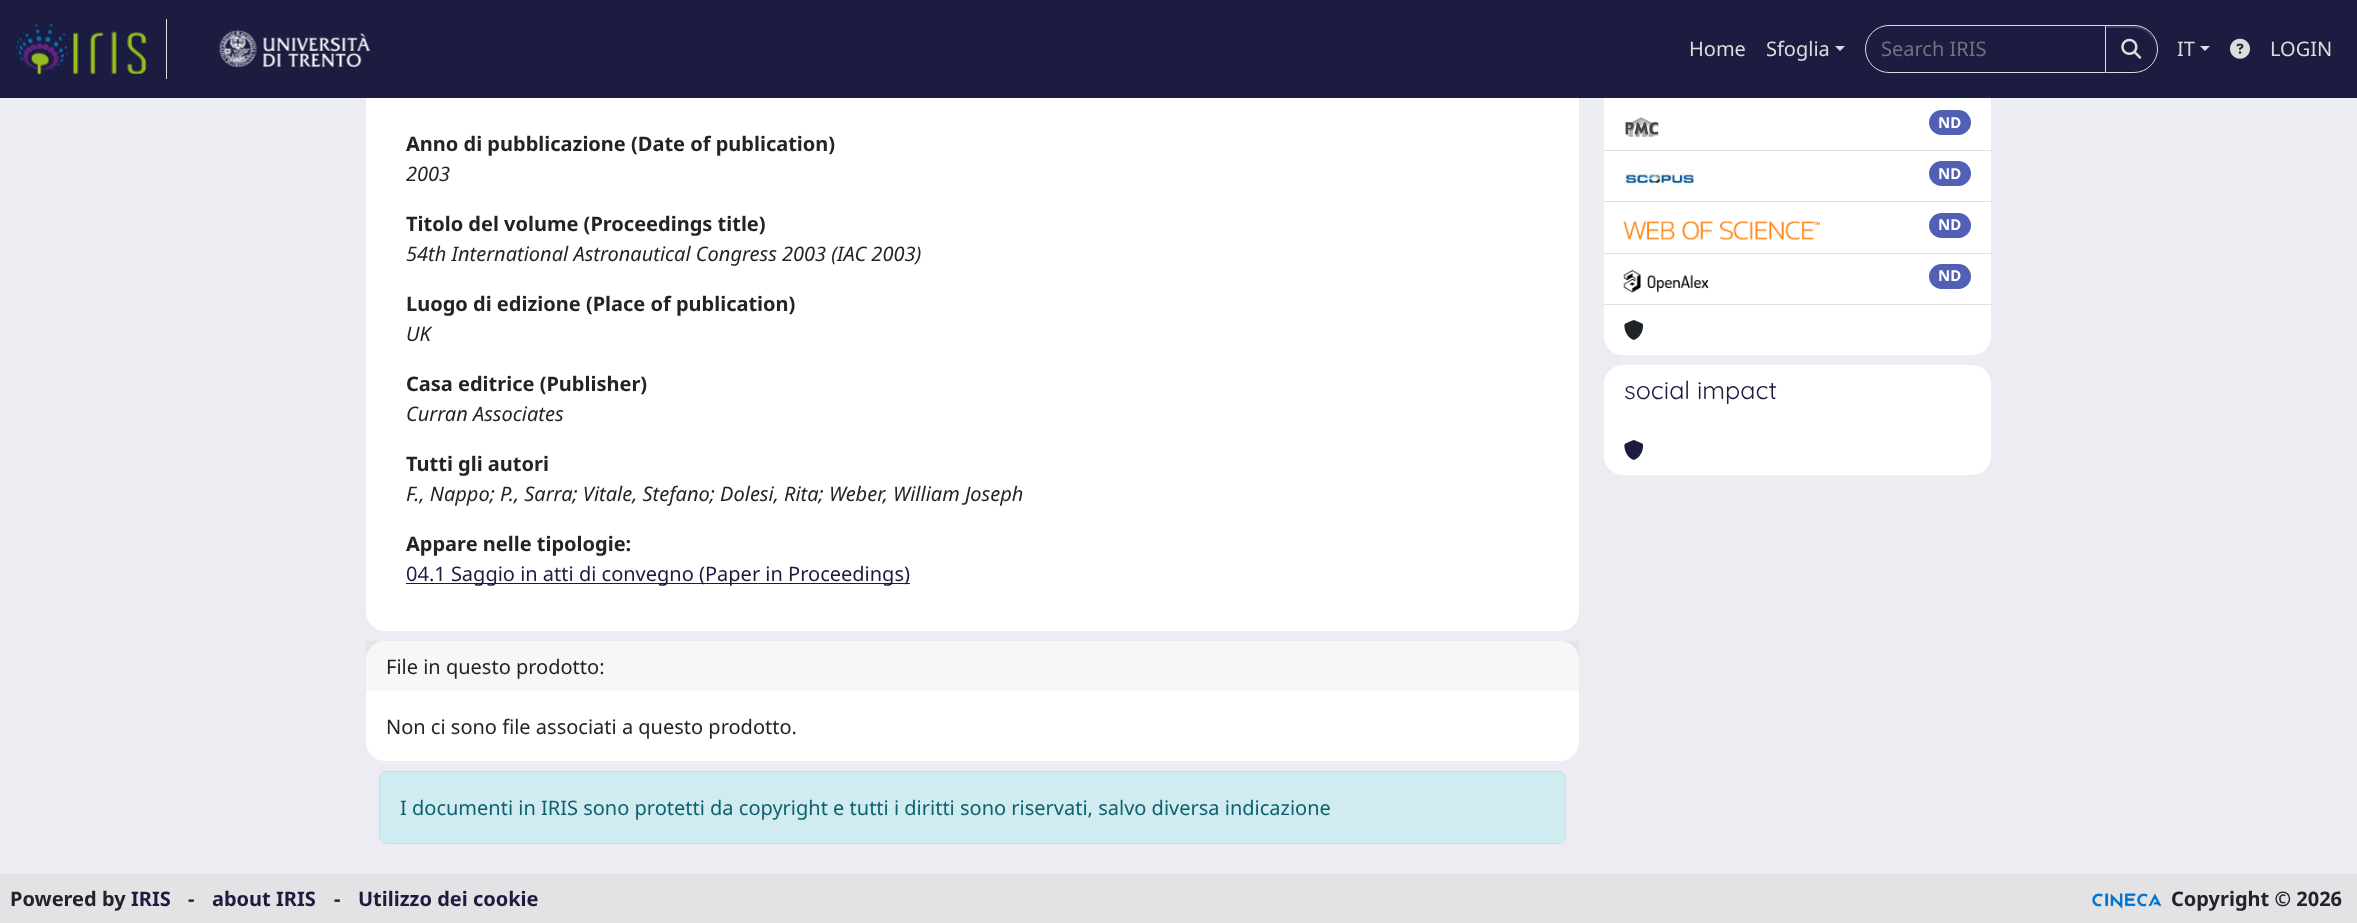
<?xml version="1.0" encoding="UTF-8"?>
<svg xmlns="http://www.w3.org/2000/svg" width="2357" height="923">
    <defs>
        <filter id="blur1" x="-50%" y="-200%" width="200%" height="500%"><feGaussianBlur stdDeviation="0.5"/></filter>
    </defs>
    <rect width="100%" height="100%" fill="#ECEDF2"/>
    <rect x="366" y="-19" width="1213" height="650" rx="19" fill="#FFFFFF"/>
    <rect x="1604" y="40" width="387" height="315" rx="19" fill="#FFFFFF"/>
    <rect x="0" y="0" width="2357" height="98" fill="#1B1C40"/>
    <rect x="166" y="19" width="1" height="60" fill="#DDDDDD"/>
    <image x="15" y="23" width="132" height="51" href="img_01.png"/>
    <image x="219" y="29" width="152" height="39" href="img_02.png"/>
    <text x="1689" y="56" font-family="Noto Sans" font-size="20" fill="#DDDDDD">Home</text>
    <text x="1766" y="56" font-family="Noto Sans" font-size="20" fill="#DDDDDD">Sfoglia</text>
    <path d="M 1835 46 H 1845 L 1840 51 Z" fill="#DDDDDD"/>
    <path d="M 1889 25.5 H 2105.5 V 72.5 H 1889 C 1876 72.5 1865.5 62 1865.5 49 C 1865.5 36 1876 25.5 1889 25.5 Z" fill="none" stroke="#DDDDDD"/>
    <text x="1881" y="56" font-family="Noto Sans" font-size="20" fill="#6C757D">Search IRIS</text>
    <rect x="2105" y="26" width="53" height="48" rx="24" fill="#000000" fill-opacity="0.07" filter="url(#blur1)"/>
    <path d="M 2105 25 H 2134 C 2147.5 25 2158 35.5 2158 49 C 2158 62.5 2147.5 73 2134 73 H 2105 Z" fill="#1B1C40"/>
    <path d="M 2106 28 H 2134 C 2146 28 2156 38 2156 49 V 48 C 2156 36 2146 26 2134 26 H 2106 Z" fill="#3D3E5D"/>
    <path d="M 2105.5 25.5 H 2134 C 2147 25.5 2157.5 36 2157.5 49 C 2157.5 62 2147 72.5 2134 72.5 H 2105.5 Z" fill="none" stroke="#DDDDDD"/>
    <image x="2121" y="38" width="21" height="21" href="img_03.png"/>
    <text x="2177" y="56" font-family="Noto Sans" font-size="20" fill="#DDDDDD">IT</text>
    <path d="M 2200 46 H 2210 L 2205 51 Z" fill="#DDDDDD"/>
    <image x="2230" y="38" width="20" height="21" href="img_04.png"/>
    <text x="2270" y="56" font-family="Noto Sans" font-size="20" fill="#DDDDDD">LOGIN</text>
    <text x="406" y="151" font-family="Noto Sans" font-size="20" font-weight="700" fill="#212529">Anno di pubblicazione (Date of publication)</text>
    <text x="406" y="181" font-family="Noto Sans" font-size="20" font-style="italic" fill="#212529">2003</text>
    <text x="406" y="231" font-family="Noto Sans" font-size="20" font-weight="700" fill="#212529">Titolo del volume (Proceedings title)</text>
    <text x="406" y="261" font-family="Noto Sans" font-size="20" font-style="italic" fill="#212529">54th International Astronautical Congress 2003 (IAC 2003)</text>
    <text x="406" y="311" font-family="Noto Sans" font-size="20" font-weight="700" fill="#212529">Luogo di edizione (Place of publication)</text>
    <text x="406" y="341" font-family="Noto Sans" font-size="20" font-style="italic" fill="#212529">UK</text>
    <text x="406" y="391" font-family="Noto Sans" font-size="20" font-weight="700" fill="#212529">Casa editrice (Publisher)</text>
    <text x="406" y="421" font-family="Noto Sans" font-size="20" font-style="italic" fill="#212529">Curran Associates</text>
    <text x="406" y="471" font-family="Noto Sans" font-size="20" font-weight="700" fill="#212529">Tutti gli autori</text>
    <text x="406" y="501" font-family="Noto Sans" font-size="20" font-style="italic" fill="#212529">F., Nappo; P., Sarra; Vitale, Stefano; Dolesi, Rita; Weber, William Joseph</text>
    <text x="406" y="551" font-family="Noto Sans" font-size="20" font-weight="700" fill="#212529">Appare nelle tipologie:</text>
    <rect x="406" y="583" width="504" height="1" fill="#1B1C40"/>
    <text x="406" y="581" font-family="Noto Sans" font-size="20" fill="#1B1C40">04.1 Saggio in atti di convegno (Paper in Proceedings)</text>
    <rect x="366" y="641" width="1213" height="120" rx="19" fill="#FFFFFF"/>
    <rect x="366" y="641" width="1213" height="50" fill="#000000" fill-opacity="0.03"/>
    <text x="386" y="674" font-family="Noto Sans" font-size="20" fill="#212529">File in questo prodotto:</text>
    <text x="386" y="734" font-family="Noto Sans" font-size="20" fill="#212529">Non ci sono file associati a questo prodotto.</text>
    <rect x="379.5" y="771.5" width="1186" height="72" rx="7.5" fill="#D1ECF1" stroke="#B9E3EA"/>
    <text x="400" y="815" font-family="Noto Sans" font-size="20" fill="#0E616E">I documenti in IRIS sono protetti da copyright e tutti i diritti sono riservati, salvo diversa indicazione</text>
    <rect x="1604" y="150" width="387" height="1" fill="#DFDFDF"/>
    <image x="1625" y="117" width="34" height="20" href="img_05.png"/>
    <rect x="1929" y="110" width="42" height="25" rx="12.5" fill="#515FB5"/>
    <text x="1938" y="128" font-family="Noto Sans" font-size="15" font-weight="700" fill="#FFFFFF">ND</text>
    <rect x="1604" y="201" width="387" height="1" fill="#DFDFDF"/>
    <image x="1624" y="168" width="70" height="17" href="img_06.png"/>
    <rect x="1929" y="161" width="42" height="25" rx="12.5" fill="#515FB5"/>
    <text x="1938" y="179" font-family="Noto Sans" font-size="15" font-weight="700" fill="#FFFFFF">ND</text>
    <rect x="1604" y="253" width="387" height="1" fill="#DFDFDF"/>
    <image x="1623" y="221" width="197" height="19" href="img_07.png"/>
    <rect x="1929" y="213" width="42" height="25" rx="12.5" fill="#515FB5"/>
    <text x="1938" y="230" font-family="Noto Sans" font-size="15" font-weight="700" fill="#FFFFFF">ND</text>
    <rect x="1604" y="304" width="387" height="1" fill="#DFDFDF"/>
    <image x="1623" y="270" width="86" height="23" href="img_08.png"/>
    <rect x="1929" y="264" width="42" height="25" rx="12.5" fill="#515FB5"/>
    <text x="1938" y="281" font-family="Noto Sans" font-size="15" font-weight="700" fill="#FFFFFF">ND</text>
    <path d="M 1604 305 H 1991 V 336 C 1991 346.5 1982.5 355 1972 355 H 1623 C 1612.5 355 1604 346.5 1604 336 Z" fill="#FFFFFF"/>
    <image x="1624" y="320" width="20" height="20" href="img_09.png"/>
    <path d="M 1623 365 H 1972 C 1982.5 365 1991 373.5 1991 384 V 425 H 1604 V 384 C 1604 373.5 1612.5 365 1623 365 Z" fill="#FFFFFF"/>
    <text x="1624" y="399" font-family="Quicksand" font-size="25" fill="#1B1C40">social impact</text>
    <path d="M 1604 425 H 1991 V 456 C 1991 466.5 1982.5 475 1972 475 H 1623 C 1612.5 475 1604 466.5 1604 456 Z" fill="#FFFFFF"/>
    <image x="1624" y="440" width="20" height="20" href="img_10.png"/>
    <rect x="0" y="874" width="2357" height="49" fill="#E3E3E5"/>
    <text x="10" y="906" font-family="Noto Sans" font-size="20" font-weight="700" fill="#212529">Powered by</text>
    <text x="131" y="906" font-family="Noto Sans" font-size="20" font-weight="700" fill="#1B1C40">IRIS</text>
    <text x="188" y="906" font-family="Noto Sans" font-size="20" font-weight="700" fill="#212529">-</text>
    <text x="212" y="906" font-family="Noto Sans" font-size="20" font-weight="700" fill="#1B1C40">about IRIS</text>
    <text x="334" y="906" font-family="Noto Sans" font-size="20" font-weight="700" fill="#212529">-</text>
    <text x="358" y="906" font-family="Noto Sans" font-size="20" font-weight="700" fill="#1B1C40">Utilizzo dei cookie</text>
    <image x="2092" y="893" width="70" height="16" href="img_11.png"/>
    <text x="2171" y="906" font-family="Noto Sans" font-size="20" font-weight="700" fill="#212529">Copyright © 2026</text>
</svg>
